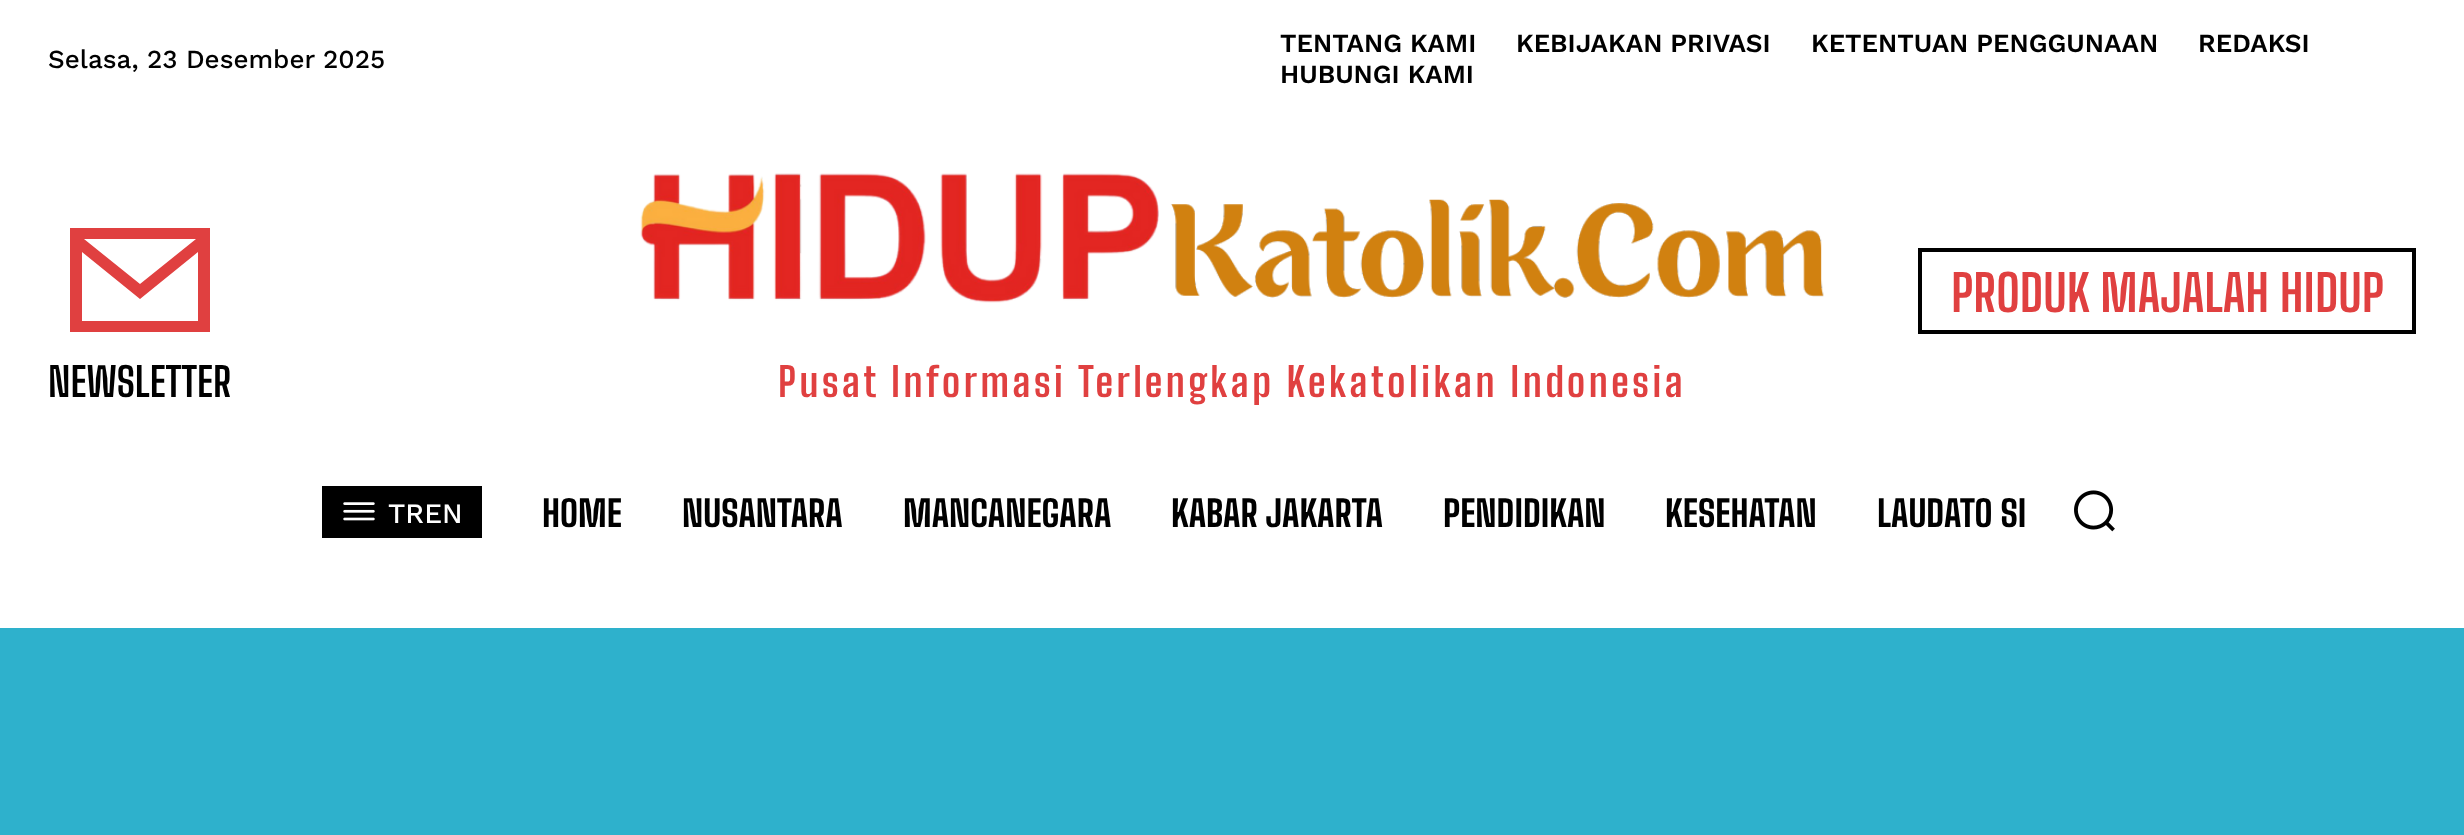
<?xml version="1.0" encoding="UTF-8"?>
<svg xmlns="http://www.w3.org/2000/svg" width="2464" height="835">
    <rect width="100%" height="100%" fill="#FFFFFF"/>
    <text x="48" y="68" font-family="Work Sans" font-size="26" font-weight="500" fill="#000000">Selasa, 23 Desember 2025</text>
    <text x="1280" y="52" font-family="Work Sans" font-size="26" font-weight="600" fill="#000000">TENTANG KAMI</text>
    <text x="1516" y="52" font-family="Work Sans" font-size="26" font-weight="600" fill="#000000">KEBIJAKAN PRIVASI</text>
    <text x="1811" y="52" font-family="Work Sans" font-size="26" font-weight="600" fill="#000000">KETENTUAN PENGGUNAAN</text>
    <text x="2198" y="52" font-family="Work Sans" font-size="26" font-weight="600" fill="#000000">REDAKSI</text>
    <text x="1280" y="83" font-family="Work Sans" font-size="26" font-weight="600" fill="#000000">HUBUNGI KAMI</text>
    <rect x="1920" y="250" width="494" height="82" fill="none" stroke="#000000" stroke-width="4"/>
    <text x="1951" y="312" font-family="Big Shoulders Text" font-size="50" font-weight="700" fill="#E04040">PRODUK MAJALAH HIDUP</text>
    <path d="M 70 228 V 332 H 210 V 228 Z M 196 239 L 140 284 L 84 239 Z M 82 321 V 252 L 140 299 L 198 252 V 321 Z" fill="#E04040"/>
    <text x="48" y="397" font-family="Big Shoulders Text" font-size="40" font-weight="700" fill="#000000">NEWSLETTER</text>
    <image x="640" y="173" width="1184" height="130" href="img_01.png"/>
    <text x="778" y="397" font-family="Big Shoulders Text" font-size="40" font-weight="700" letter-spacing="3.6" fill="#E04040">Pusat Informasi Terlengkap Kekatolikan Indonesia</text>
    <rect x="322" y="486" width="160" height="52" fill="#000000"/>
    <image x="343" y="502" width="32" height="19" href="img_02.png"/>
    <text x="388" y="523" font-family="Work Sans" font-size="28" font-weight="500" fill="#FFFFFF">TREN</text>
    <text x="542" y="527" font-family="Big Shoulders Text" font-size="36" font-weight="800" fill="#000000">HOME</text>
    <text x="682" y="527" font-family="Big Shoulders Text" font-size="36" font-weight="800" fill="#000000">NUSANTARA</text>
    <text x="903" y="527" font-family="Big Shoulders Text" font-size="36" font-weight="800" fill="#000000">MANCANEGARA</text>
    <text x="1171" y="527" font-family="Big Shoulders Text" font-size="36" font-weight="800" fill="#000000">KABAR JAKARTA</text>
    <text x="1443" y="527" font-family="Big Shoulders Text" font-size="36" font-weight="800" fill="#000000">PENDIDIKAN</text>
    <text x="1665" y="527" font-family="Big Shoulders Text" font-size="36" font-weight="800" fill="#000000">KESEHATAN</text>
    <text x="1877" y="527" font-family="Big Shoulders Text" font-size="36" font-weight="800" fill="#000000">LAUDATO SI</text>
    <image x="2074" y="490" width="41" height="42" href="img_03.png"/>
    <rect x="0" y="628" width="2464" height="207" fill="#2EB1CC"/>
</svg>
